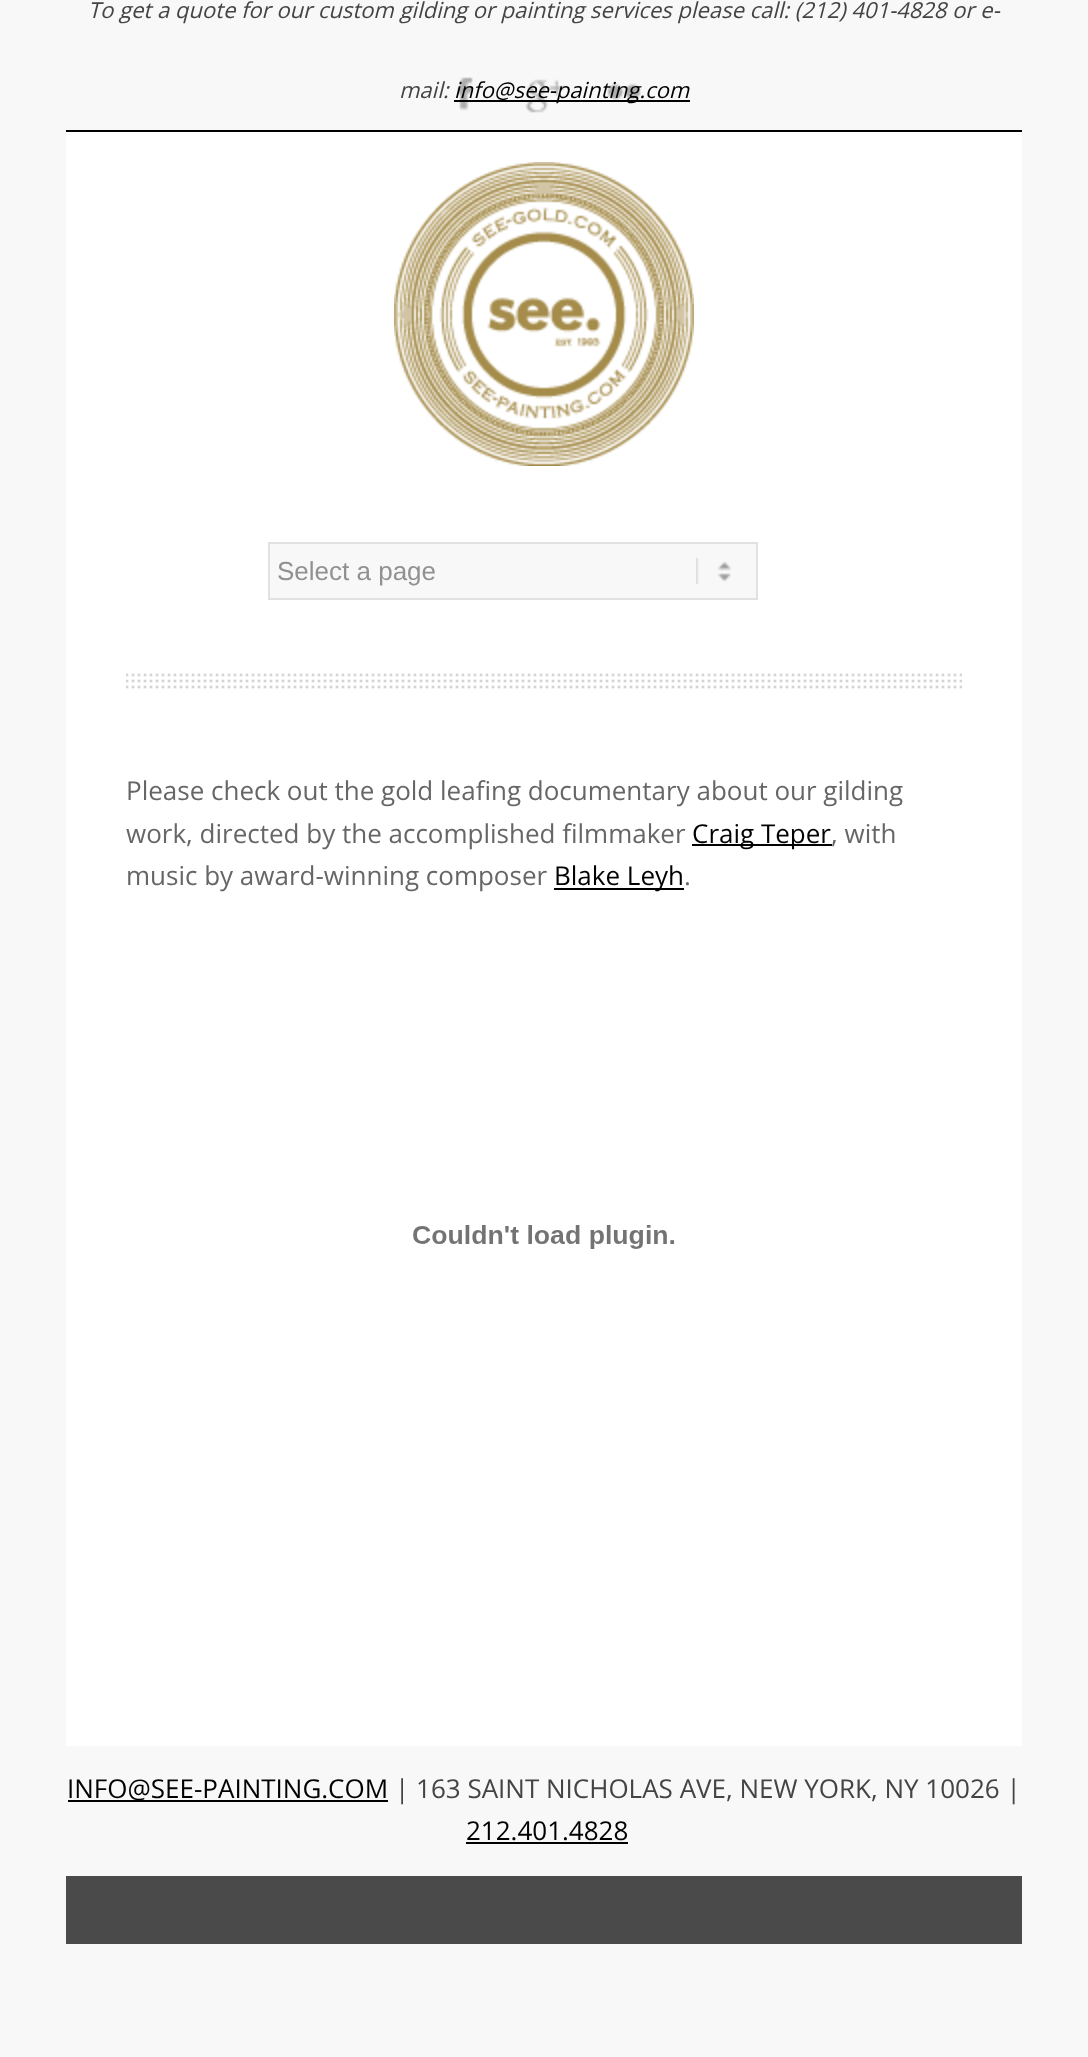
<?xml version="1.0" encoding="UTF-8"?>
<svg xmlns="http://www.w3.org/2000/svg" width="1088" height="2057">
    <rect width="100%" height="100%" fill="#F8F8F8"/>
    <text x="88" y="18" font-family="Open Sans" font-size="22" font-style="italic" fill="#444444">To get a quote for our custom gilding or painting services please call: (212) 401-4828 or e-</text>
    <text x="399" y="98" font-family="Open Sans" font-size="22" font-style="italic" fill="#444444">mail:</text>
    <rect x="454" y="100" width="236" height="2" fill="#000000"/>
    <text x="454" y="98" font-family="Open Sans" font-size="22" font-style="italic" fill="#000000">info@see-painting.com</text>
    <image x="457" y="77" width="16" height="34" href="img_01.png"/>
    <image x="525" y="79" width="40" height="34" href="img_02.png"/>
    <image x="607" y="83" width="34" height="17" href="img_03.png"/>
    <rect x="66" y="130" width="956" height="2" fill="#000000"/>
    <rect x="66" y="132" width="956" height="1614" fill="#FFFFFF"/>
    <image x="126" y="673" width="836" height="16" href="img_04.png"/>
    <image x="394" y="162" width="300" height="304" href="img_05.png"/>
    <rect x="270" y="544" width="486" height="54" fill="#F8F8F8"/>
    <image x="696" y="558" width="35" height="26" href="img_06.png"/>
    <rect x="269" y="543" width="488" height="56" fill="none" stroke="#E1E1E1" stroke-width="2"/>
    <text x="277" y="580" font-family="Liberation Sans" font-size="26" fill="#919191">Select a page</text>
    <text font-family="Open Sans" font-size="26" fill="#666666">
        <tspan x="126" y="800">Please check out the gold leafing documentary about our gilding</tspan>
        <tspan x="126" y="843">work, directed by the accomplished filmmaker</tspan>
    </text>
    <rect x="692" y="844" width="140" height="2" fill="#000000"/>
    <text x="692" y="843" font-family="Open Sans" font-size="26" fill="#000000">Craig Teper</text>
    <text x="831" y="843" font-family="Open Sans" font-size="26" fill="#666666">, with</text>
    <text x="126" y="885" font-family="Open Sans" font-size="26" fill="#666666">music by award-winning composer</text>
    <rect x="554" y="888" width="130" height="2" fill="#000000"/>
    <text x="554" y="885" font-family="Open Sans" font-size="26" fill="#000000">Blake Leyh</text>
    <text x="684" y="885" font-family="Open Sans" font-size="26" fill="#666666">.</text>
    <image x="413" y="1225" width="262" height="24" href="img_07.png"/>
    <rect x="68" y="1800" width="320" height="2" fill="#000000"/>
    <text x="67" y="1798" font-family="Open Sans" font-size="26" fill="#000000">INFO@SEE-PAINTING.COM</text>
    <text x="395" y="1798" font-family="Open Sans" font-size="26" fill="#444444">| 163 SAINT NICHOLAS AVE, NEW YORK, NY 10026 |</text>
    <text x="466" y="1840" font-family="Open Sans" font-size="26" fill="#000000">212.401.4828</text>
    <rect x="466" y="1842" width="162" height="2" fill="#000000"/>
    <rect x="66" y="1876" width="956" height="68" fill="#4A4A4A"/>
</svg>
